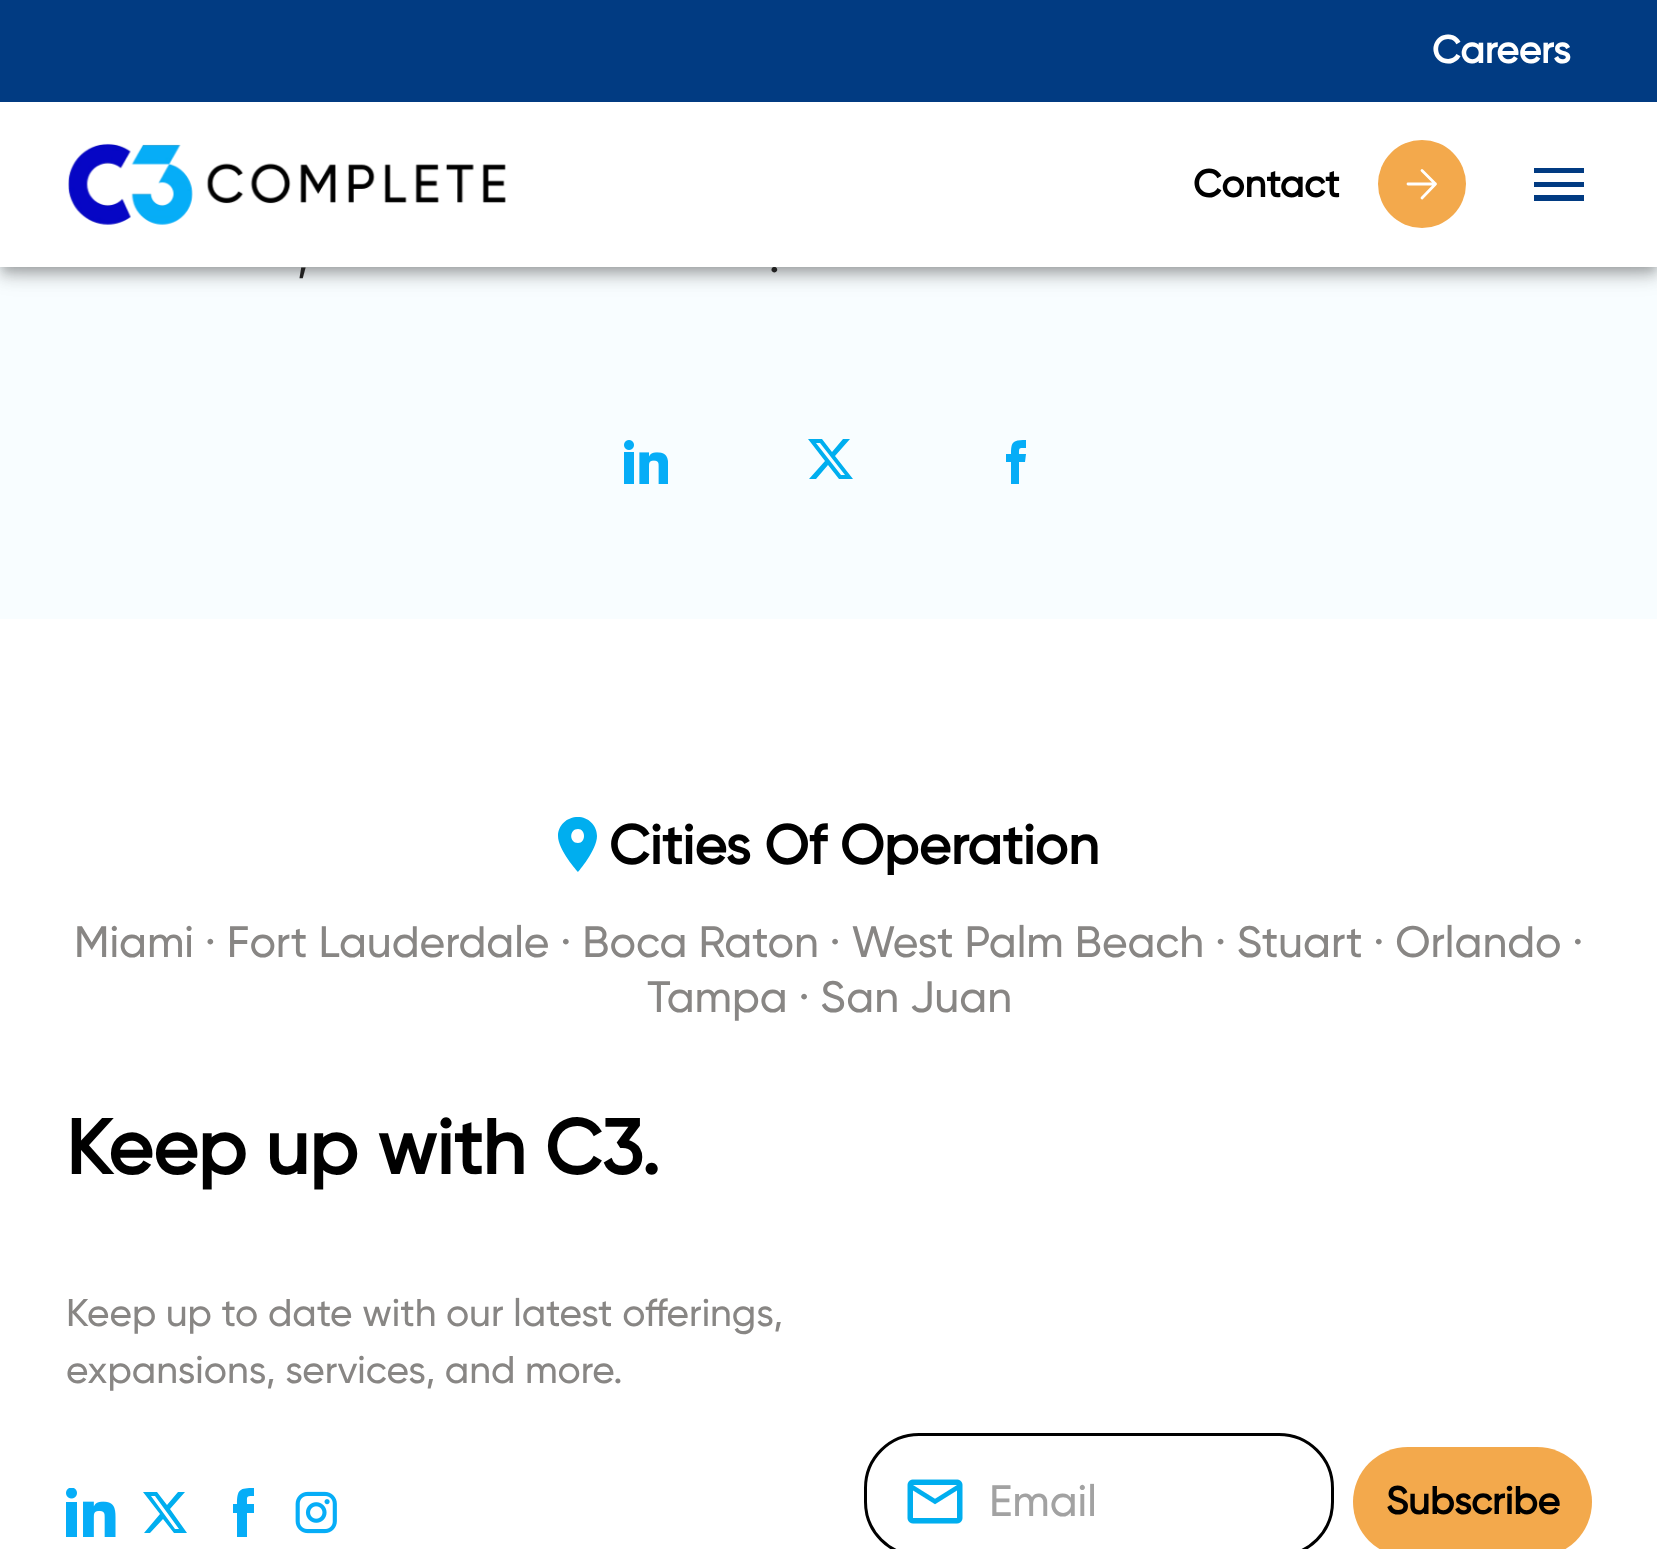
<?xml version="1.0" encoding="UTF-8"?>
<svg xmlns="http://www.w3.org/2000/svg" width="1657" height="1549">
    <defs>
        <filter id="blur1" x="-50%" y="-200%" width="200%" height="500%"><feGaussianBlur stdDeviation="14"/></filter>
        <filter id="blur2" x="-50%" y="-200%" width="200%" height="500%"><feGaussianBlur stdDeviation="7"/></filter>
        <filter id="blur3" x="-50%" y="-200%" width="200%" height="500%"><feGaussianBlur stdDeviation="5.5"/></filter>
    </defs>
    <rect width="100%" height="100%" fill="#FFFFFF"/>
    <rect x="0" y="267" width="1657" height="352" fill="#F8FDFF"/>
    <rect x="0" y="3" width="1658" height="267" fill="#000000" fill-opacity="0.12" filter="url(#blur1)"/>
    <rect x="0" y="11" width="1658" height="267" fill="#000000" fill-opacity="0.14" filter="url(#blur2)"/>
    <rect x="3" y="8" width="1653" height="262" fill="#000000" fill-opacity="0.2" filter="url(#blur3)"/>
    <rect x="0" y="0" width="1657" height="102" fill="#013B82"/>
    <text x="1432" y="63" font-family="Gilroy" font-size="38.5" font-weight="700" fill="#FFFFFF">Careers</text>
    <text x="769" y="272" font-family="Gilroy" font-size="44" font-weight="500" fill="#212121">.</text>
    <rect x="0" y="102" width="1657" height="165" fill="#FFFFFF"/>
    <image x="68" y="143" width="438" height="82" href="img_01.png"/>
    <text x="1193" y="197" font-family="Gilroy" font-size="38.5" font-weight="700" fill="#000000">Contact</text>
    <circle cx="1422" cy="184" r="44" fill="#F3A94C"/>
    <path d="M 1408 184 H 1435.5 M 1422 170.5 L 1435.5 184 L 1422 198" fill="none" stroke="#FFFFFF" stroke-width="2.8" stroke-linecap="round" stroke-linejoin="round"/>
    <path d="M 1534 201 H 1584 V 195 H 1534 Z M 1534 187 H 1584 V 182 H 1534 Z M 1534 168 V 173 H 1584 V 168 Z" fill="#013B82"/>
    <text x="297" y="272" font-family="Gilroy" font-size="44" font-weight="500" fill="#212121">,</text>
    <image x="624" y="440" width="44" height="44" href="img_02.png"/>
    <path d="M 843 439 H 850 L 835 456 L 853 479 H 839 L 828 465 L 816 479 H 809 L 825 461 L 808 439 H 822 L 832 452 Z M 841 475 H 845 L 820 443 H 816 Z" fill="#00AEEF"/>
    <path d="M 1025 462 H 1019 V 484 H 1011 V 462 H 1006 V 454 H 1011 C 1011 441 1013 440 1026 440 V 448 C 1019 448 1019 447 1019 454 H 1026 Z" fill="#06ADF7"/>
    <path d="M 578 817 C 567 817 558 825 558 836 C 558 850 578 872 578 872 C 578 872 597 850 597 836 C 597 825 588 817 578 817 Z M 578 843 C 569 843 569 829 578 829 C 586 829 586 843 578 843 Z" fill="#00AEEF"/>
    <text x="609" y="864" font-family="Gilroy" font-size="55" font-weight="700" fill="#000000">Cities Of Operation</text>
    <text x="74" y="957" font-family="Gilroy" font-size="44" font-weight="500" fill="#888684">Miami · Fort Lauderdale · Boca Raton · West Palm Beach · Stuart · Orlando ·</text>
    <text x="647" y="1012" font-family="Gilroy" font-size="44" font-weight="500" fill="#888684">Tampa · San Juan</text>
    <text x="66" y="1174" font-family="Gilroy" font-size="77" font-weight="700" fill="#000000">Keep up with C3.</text>
    <text font-family="Gilroy" font-size="38.5" font-weight="500" fill="#888684">
        <tspan x="66" y="1326">Keep up to date with our latest offerings,</tspan>
        <tspan x="66" y="1383">expansions, services, and more.</tspan>
    </text>
    <image x="66" y="1488" width="50" height="49" href="img_03.png"/>
    <path d="M 178 1492 H 185 L 170 1509 L 187 1533 H 174 L 163 1519 L 150 1533 H 144 L 160 1514 L 143 1492 H 157 L 167 1505 Z M 175 1529 H 179 L 155 1496 H 151 Z" fill="#00AEEF"/>
    <path d="M 254 1513 H 247 V 1537 H 237 V 1513 H 233 V 1504 H 237 C 237 1489 240 1488 254 1488 V 1496 C 246 1496 247 1496 247 1504 H 254 Z" fill="#06ADF7"/>
    <image x="295" y="1491" width="42" height="43" href="img_04.png"/>
    <image x="907" y="1479" width="56" height="45" href="img_05.png"/>
    <rect x="865.5" y="1434.5" width="467" height="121" rx="53.5" fill="none" stroke="#000000" stroke-width="3"/>
    <text x="989" y="1516" font-family="Gilroy" font-size="44" font-weight="500" fill="#A2A2A2">Email</text>
    <rect x="1353" y="1447" width="239" height="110" rx="55" fill="#F3A94C"/>
    <text x="1386" y="1514" font-family="Gilroy" font-size="38.5" font-weight="700" fill="#000000">Subscribe</text>
</svg>
